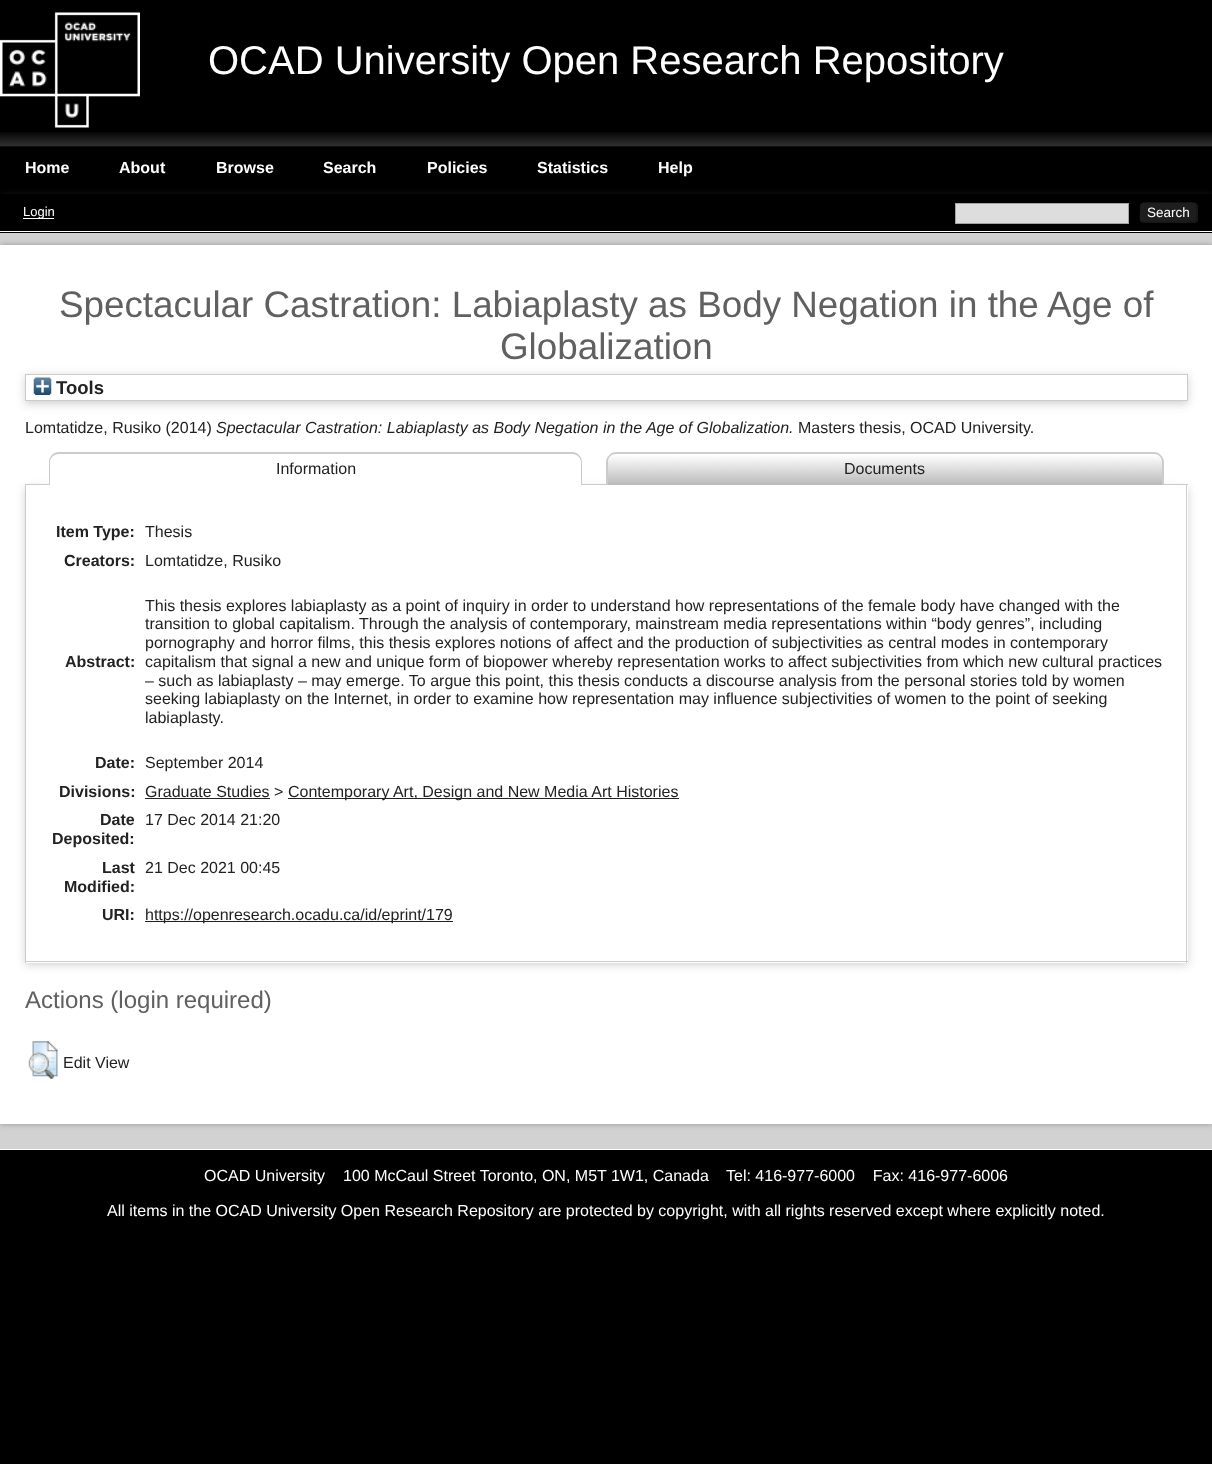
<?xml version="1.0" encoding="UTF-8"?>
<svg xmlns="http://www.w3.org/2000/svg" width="1212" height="1464">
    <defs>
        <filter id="blur1" x="-50%" y="-200%" width="200%" height="500%"><feGaussianBlur stdDeviation="4"/></filter>
        <filter id="blur2" x="-50%" y="-200%" width="200%" height="500%"><feGaussianBlur stdDeviation="3"/></filter>
        <clipPath id="clip1"><path d="M 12 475 H 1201 V 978 H 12 Z M 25 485 H 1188 V 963 H 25 Z" clip-rule="evenodd"/></clipPath>
    </defs>
    <rect width="100%" height="100%" fill="#000000"/>
    <image x="0" y="12" width="140" height="116" href="img_01.png"/>
    <text x="208" y="74" font-family="Liberation Sans" font-size="40" fill="#FFFFFF">OCAD University Open Research Repository</text>
    <image x="0" y="132" width="1212" height="15" href="img_02.png"/>
    <text x="25" y="173" font-family="Liberation Sans" font-size="16" font-weight="700" fill="#FFFFFF">Home</text>
    <text x="119" y="173" font-family="Liberation Sans" font-size="16" font-weight="700" fill="#FFFFFF">About</text>
    <text x="216" y="173" font-family="Liberation Sans" font-size="16" font-weight="700" fill="#FFFFFF">Browse</text>
    <text x="323" y="173" font-family="Liberation Sans" font-size="16" font-weight="700" fill="#FFFFFF">Search</text>
    <text x="427" y="173" font-family="Liberation Sans" font-size="16" font-weight="700" fill="#FFFFFF">Policies</text>
    <text x="537" y="173" font-family="Liberation Sans" font-size="16" font-weight="700" fill="#FFFFFF">Statistics</text>
    <text x="658" y="173" font-family="Liberation Sans" font-size="16" font-weight="700" fill="#FFFFFF">Help</text>
    <rect x="0" y="196" width="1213" height="39" fill="#646464" fill-opacity="0.3" filter="url(#blur1)"/>
    <rect x="0" y="194" width="1212" height="39" fill="#000000"/>
    <rect x="0" y="231" width="1212" height="1" fill="#FFFFFF"/>
    <rect x="23" y="218" width="31" height="1" fill="#FFFFFF"/>
    <text x="23" y="216" font-family="Liberation Sans" font-size="13" fill="#FFFFFF">Login</text>
    <rect x="955.5" y="203.5" width="173" height="20" fill="#DDDDDD" stroke="#A3A3A3"/>
    <rect x="1140" y="203" width="58" height="20" rx="4" fill="#1E1E1E"/>
    <path d="M 1196 204 C 1198 206 1197 210 1197 212.5 C 1197 223.5 1197 222 1185.5 222 H 1152 C 1151.5 222 1144 223 1141.5 221" fill="none" stroke="#141414" stroke-width="1.2"/>
    <path d="M 1141.5 221 C 1139.5 219 1140.5 215 1140.5 212.5 C 1140.5 201.5 1140.5 203 1152 203 H 1185.5 C 1186 203 1193.5 202 1196 204" fill="none" stroke="#1E1E1E" stroke-width="1.2"/>
    <text x="1147" y="217" font-family="Liberation Sans" font-size="13.5" fill="#FFFFFF">Search</text>
    <rect x="0" y="233" width="1212" height="916" fill="#D2D2D2"/>
    <rect x="0" y="245" width="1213" height="879" fill="#949494" filter="url(#blur2)"/>
    <rect x="0" y="245" width="1212" height="879" fill="#FFFFFF"/>
    <text x="59" y="317" font-family="Liberation Sans" font-size="36.8" fill="#606060">Spectacular Castration: Labiaplasty as Body Negation in the Age of</text>
    <text x="500" y="359" font-family="Liberation Sans" font-size="36.8" fill="#606060">Globalization</text>
    <rect x="25" y="376" width="1163" height="28" fill="#646464" fill-opacity="0.3" filter="url(#blur1)"/>
    <rect x="25.5" y="374.5" width="1162" height="26" fill="#FFFFFF" stroke="#CCCCCC"/>
    <image x="33" y="377" width="19" height="18" href="img_03.png"/>
    <text x="56" y="394" font-family="Liberation Sans" font-size="18.5" font-weight="700" fill="#222222">Tools</text>
    <text x="25" y="433" font-family="Liberation Sans" font-size="16" fill="#222222">Lomtatidze, Rusiko (2014)</text>
    <text x="216" y="433" font-family="Liberation Sans" font-size="16" font-style="italic" fill="#222222">Spectacular Castration: Labiaplasty as Body Negation in the Age of Globalization.</text>
    <text x="798" y="433" font-family="Liberation Sans" font-size="16" fill="#222222">Masters thesis, OCAD University.</text>
    <g clip-path="url(#clip1)">
        <rect x="25" y="488" width="1163" height="477" fill="#646464" fill-opacity="0.3" filter="url(#blur1)"/>
    </g>
    <rect x="25" y="484" width="581" height="1" fill="#CCCCCC"/>
    <path d="M 59 454 H 572 C 577 454 581 458 581 463 V 485 H 50 V 463 C 50 458 54 454 59 454 Z" fill="#FFFFFF"/>
    <path d="M 59 452 H 572 C 578 452 582 457 582 462 V 485 H 49 V 462 C 49 457 53 452 59 452 Z M 59 454 H 572 C 577 454 581 458 581 462 V 485 H 50 V 462 C 50 458 54 454 59 454 Z" fill="#CCCCCC" fill-rule="evenodd"/>
    <text x="276" y="474" font-family="Liberation Sans" font-size="16" fill="#222222">Information</text>
    <rect x="1164" y="484" width="24" height="1" fill="#CCCCCC"/>
    <path d="M 617 454 H 1154 C 1159 454 1163 458 1163 463 V 485 H 608 V 463 C 608 458 612 454 617 454 Z" fill="#BBBBBB"/>
    <image x="608" y="454" width="555" height="29" href="img_04.png"/>
    <path d="M 616 452 H 1154 C 1159 452 1164 457 1164 462 V 485 H 606 V 462 C 606 457 611 452 616 452 Z M 616 454 H 1154 C 1159 454 1162 458 1162 462 V 485 H 608 V 462 C 608 458 611 454 616 454 Z" fill="#CCCCCC" fill-rule="evenodd"/>
    <text x="844" y="474" font-family="Liberation Sans" font-size="16" fill="#222222">Documents</text>
    <rect x="1186" y="485" width="1" height="478" fill="#CCCCCC"/>
    <rect x="25" y="961" width="1163" height="1" fill="#CCCCCC"/>
    <rect x="25" y="485" width="1" height="478" fill="#CCCCCC"/>
    <text x="56" y="537" font-family="Liberation Sans" font-size="16" font-weight="700" fill="#222222">Item Type:</text>
    <text x="145" y="537" font-family="Liberation Sans" font-size="16" fill="#222222">Thesis</text>
    <text x="64" y="566" font-family="Liberation Sans" font-size="16" font-weight="700" fill="#222222">Creators:</text>
    <text x="145" y="566" font-family="Liberation Sans" font-size="16" fill="#222222">Lomtatidze, Rusiko</text>
    <text x="65" y="667" font-family="Liberation Sans" font-size="16" font-weight="700" fill="#222222">Abstract:</text>
    <text font-family="Liberation Sans" font-size="16" fill="#222222">
        <tspan x="145" y="611">This thesis explores labiaplasty as a point of inquiry in order to understand how representations of the female body have changed with the</tspan>
        <tspan x="145" y="629">transition to global capitalism.</tspan>
    </text>
    <text x="359" y="629" font-family="Liberation Sans" font-size="16" fill="#222222">Through the analysis of contemporary, mainstream media representations within “body genres”, including</text>
    <text font-family="Liberation Sans" font-size="16" fill="#222222">
        <tspan x="145" y="648">pornography and horror films, this thesis explores notions of affect and the production of subjectivities as central modes in contemporary</tspan>
        <tspan x="145" y="667">capitalism that signal a new and unique form of biopower whereby representation works to affect subjectivities from which new cultural practices</tspan>
        <tspan x="145" y="686">– such as labiaplasty – may emerge. To argue this point, this thesis conducts a discourse analysis from the personal stories told by women</tspan>
        <tspan x="145" y="704">seeking labiaplasty on the Internet, in order to examine how representation may influence subjectivities of women to the point of seeking</tspan>
        <tspan x="145" y="723">labiaplasty.</tspan>
    </text>
    <text x="95" y="768" font-family="Liberation Sans" font-size="16" font-weight="700" fill="#222222">Date:</text>
    <text x="145" y="768" font-family="Liberation Sans" font-size="16" fill="#222222">September 2014</text>
    <text x="59" y="797" font-family="Liberation Sans" font-size="16" font-weight="700" fill="#222222">Divisions:</text>
    <text x="145" y="797" font-family="Liberation Sans" font-size="16" fill="#222222">Graduate Studies &gt;</text>
    <rect x="145" y="798" width="125" height="1" fill="#222222"/>
    <rect x="288" y="798" width="391" height="1" fill="#222222"/>
    <text x="288" y="797" font-family="Liberation Sans" font-size="16" fill="#222222">Contemporary Art, Design and New Media Art Histories</text>
    <text x="100" y="825" font-family="Liberation Sans" font-size="16" font-weight="700" fill="#222222">Date</text>
    <text x="52" y="844" font-family="Liberation Sans" font-size="16" font-weight="700" fill="#222222">Deposited:</text>
    <text x="145" y="825" font-family="Liberation Sans" font-size="16" fill="#222222">17 Dec 2014 21:20</text>
    <text x="102" y="873" font-family="Liberation Sans" font-size="16" font-weight="700" fill="#222222">Last</text>
    <text x="64" y="892" font-family="Liberation Sans" font-size="16" font-weight="700" fill="#222222">Modified:</text>
    <text x="145" y="873" font-family="Liberation Sans" font-size="16" fill="#222222">21 Dec 2021 00:45</text>
    <text x="102" y="920" font-family="Liberation Sans" font-size="16" font-weight="700" fill="#222222">URI:</text>
    <rect x="145" y="921" width="308" height="1" fill="#222222"/>
    <text x="145" y="920" font-family="Liberation Sans" font-size="16" fill="#222222">https://openresearch.ocadu.ca/id/eprint/179</text>
    <text x="25" y="1008" font-family="Liberation Sans" font-size="24" fill="#606060">Actions (login required)</text>
    <image x="28" y="1041" width="30" height="38" href="img_05.png"/>
    <text x="63" y="1068" font-family="Liberation Sans" font-size="16" fill="#222222">Edit View</text>
    <rect x="0" y="1149" width="1212" height="1" fill="#FFFFFF"/>
    <text x="204" y="1181" font-family="Liberation Sans" font-size="16" fill="#FFFFFF">OCAD University</text>
    <text x="343" y="1181" font-family="Liberation Sans" font-size="16" fill="#FFFFFF">100 McCaul Street Toronto, ON, M5T 1W1, Canada</text>
    <text x="726" y="1181" font-family="Liberation Sans" font-size="16" fill="#FFFFFF" xml:space="preserve">Tel: 416-977-6000    Fax: 416-977-6006</text>
    <text x="107" y="1216" font-family="Liberation Sans" font-size="16" fill="#FFFFFF">All items in the OCAD University Open Research Repository are protected by copyright, with all rights reserved except where explicitly noted.</text>
</svg>
